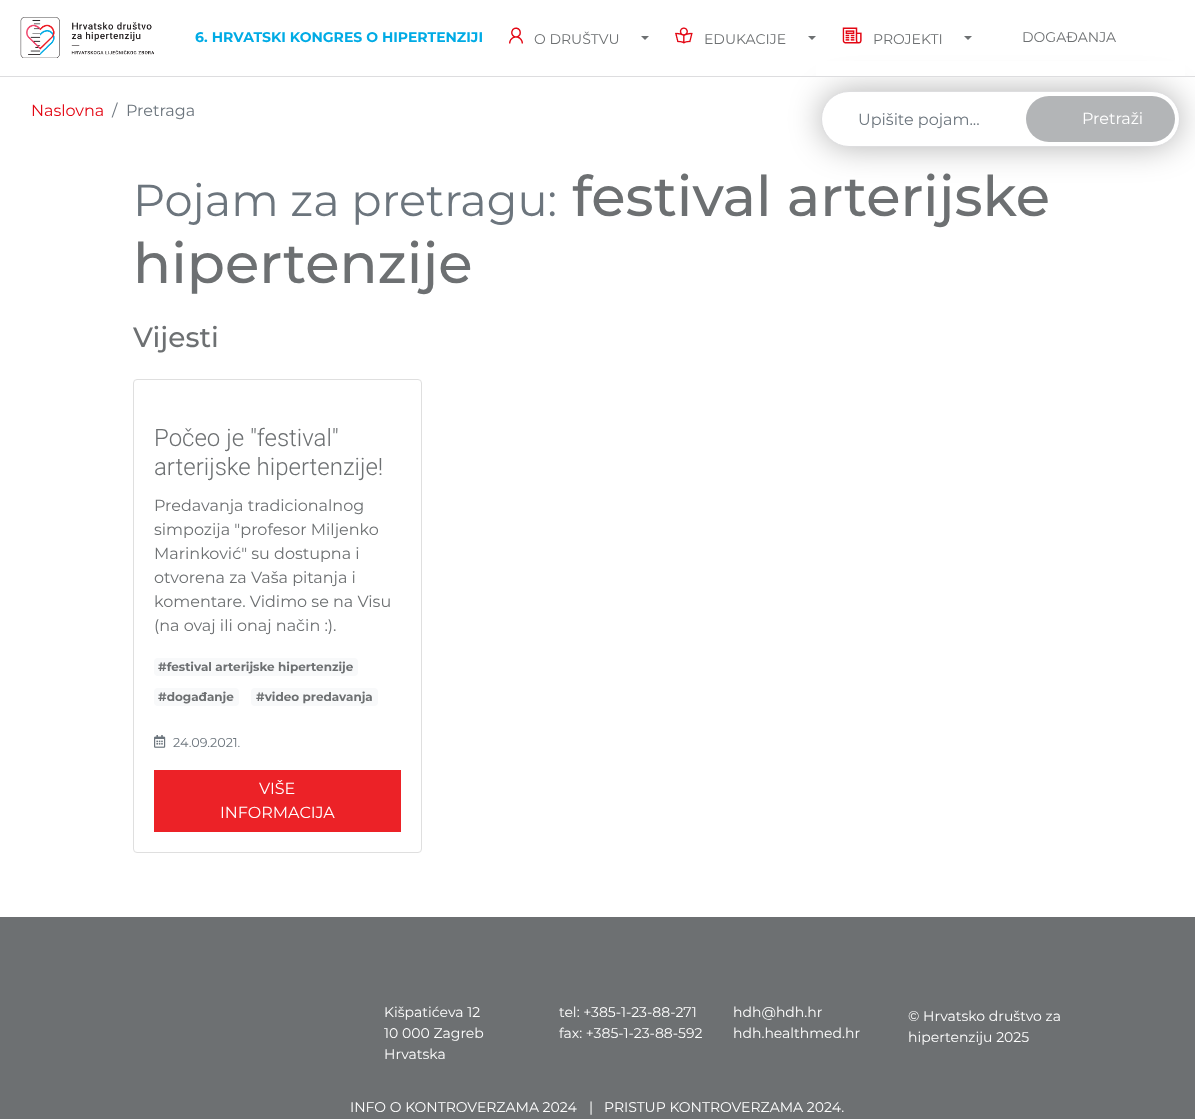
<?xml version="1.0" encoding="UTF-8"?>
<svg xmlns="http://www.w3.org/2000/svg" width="1195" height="1119">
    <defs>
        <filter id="blur1" x="-50%" y="-200%" width="200%" height="500%"><feGaussianBlur stdDeviation="16.5"/></filter>
    </defs>
    <rect width="100%" height="100%" fill="#FFFFFF"/>
    <rect x="821" y="91" width="359" height="56" rx="28" fill="#000000" fill-opacity="0.3" filter="url(#blur1)"/>
    <rect x="816" y="61" width="369" height="15" fill="#FFFFFF"/>
    <rect x="0" y="76" width="1195" height="1" fill="#DDDDDF"/>
    <image x="20" y="17" width="134" height="41" href="img_01.png"/>
    <text x="195" y="42" font-family="Montserrat" font-size="14" font-weight="700" fill="#00ABE5">6. HRVATSKI KONGRES O HIPERTENZIJI</text>
    <image x="509" y="27" width="14" height="17" href="img_02.png"/>
    <text x="534" y="44" font-family="Montserrat" font-size="14" fill="#6D7072">O DRUŠTVU</text>
    <path d="M 641 36 H 649 L 645 40 Z" fill="#6D7072"/>
    <image x="675" y="27" width="18" height="17" href="img_03.png"/>
    <text x="704" y="44" font-family="Montserrat" font-size="14" fill="#6D7072">EDUKACIJE</text>
    <path d="M 808 36 H 816 L 812 40 Z" fill="#6D7072"/>
    <image x="842" y="27" width="20" height="17" href="img_04.png"/>
    <text x="873" y="44" font-family="Montserrat" font-size="14" fill="#6D7072">PROJEKTI</text>
    <path d="M 964 36 H 972 L 968 40 Z" fill="#6D7072"/>
    <text x="1022" y="42" font-family="Montserrat" font-size="14" fill="#6D7072">DOGAĐANJA</text>
    <text x="31" y="116" font-family="Montserrat" font-size="16" fill="#E30613">Naslovna</text>
    <text x="112" y="116" font-family="Montserrat" font-size="16" fill="#6C757D">/</text>
    <text x="126" y="116" font-family="Montserrat" font-size="16" fill="#6C757D">Pretraga</text>
    <rect x="821.5" y="91.5" width="358" height="55" rx="27.5" fill="#FFFFFF" stroke="#DDDDDF"/>
    <text x="858" y="125" font-family="Montserrat" font-size="16" fill="#6C757D">Upišite pojam...</text>
    <rect x="1026" y="96" width="149" height="46" rx="23" fill="#B3B5B7"/>
    <text x="1082" y="124" font-family="Montserrat" font-size="16" fill="#FFFFFF">Pretraži</text>
    <text x="133" y="216" font-family="Montserrat" font-size="44.75" fill="#6C757D">Pojam za pretragu:</text>
    <text x="572" y="216" font-family="Montserrat" font-size="56" font-weight="500" fill="#6D7072">festival arterijske</text>
    <text x="133" y="283" font-family="Montserrat" font-size="56" font-weight="500" fill="#6D7072">hipertenzije</text>
    <text x="133" y="347" font-family="Montserrat" font-size="28" font-weight="500" fill="#6D7072">Vijesti</text>
    <rect x="133.5" y="379.5" width="288" height="473" rx="3.5" fill="none" stroke="#DFDFDF"/>
    <text font-family="Roboto" font-size="24" font-weight="300" fill="#6D7072">
        <tspan x="154" y="446">Počeo je "festival"</tspan>
        <tspan x="154" y="475">arterijske hipertenzije!</tspan>
    </text>
    <text font-family="Montserrat" font-size="16" fill="#6D7072">
        <tspan x="154" y="511">Predavanja tradicionalnog</tspan>
        <tspan x="154" y="535">simpozija "profesor Miljenko</tspan>
        <tspan x="154" y="559">Marinković" su dostupna i</tspan>
        <tspan x="154" y="583">otvorena za Vaša pitanja i</tspan>
        <tspan x="154" y="607">komentare. Vidimo se na Visu</tspan>
        <tspan x="154" y="631">(na ovaj ili onaj način :).</tspan>
    </text>
    <rect x="154" y="658" width="204" height="18" rx="4" fill="#F8F9FA"/>
    <text x="158" y="671" font-family="Montserrat" font-size="12" font-weight="700" fill="#6D7072">#festival arterijske hipertenzije</text>
    <rect x="154" y="688" width="85" height="18" rx="4" fill="#F8F9FA"/>
    <text x="158" y="701" font-family="Montserrat" font-size="12" font-weight="700" fill="#6D7072">#događanje</text>
    <rect x="251" y="688" width="127" height="18" rx="4" fill="#F8F9FA"/>
    <text x="256" y="701" font-family="Montserrat" font-size="12" font-weight="700" fill="#6D7072">#video predavanja</text>
    <image x="154" y="735" width="12" height="13" href="img_05.png"/>
    <text x="173" y="747" font-family="Montserrat" font-size="12.75" fill="#6C757D">24.09.2021.</text>
    <rect x="154" y="770" width="247" height="62" fill="#EC2227"/>
    <text x="259" y="794" font-family="Montserrat" font-size="16" fill="#FFFFFF">VIŠE</text>
    <text x="220" y="818" font-family="Montserrat" font-size="16" fill="#FFFFFF">INFORMACIJA</text>
    <rect x="0" y="917" width="1195" height="202" fill="#6D7072"/>
    <text font-family="Montserrat" font-size="14" fill="#FFFFFF">
        <tspan x="384" y="1017">Kišpatićeva 12</tspan>
        <tspan x="384" y="1038">10 000 Zagreb</tspan>
        <tspan x="384" y="1059">Hrvatska</tspan>
    </text>
    <text font-family="Montserrat" font-size="14" fill="#FFFFFF">
        <tspan x="559" y="1017">tel: +385-1-23-88-271</tspan>
        <tspan x="559" y="1038">fax: +385-1-23-88-592</tspan>
    </text>
    <text font-family="Montserrat" font-size="14" fill="#FFFFFF">
        <tspan x="733" y="1017">hdh@hdh.hr</tspan>
        <tspan x="733" y="1038">hdh.healthmed.hr</tspan>
    </text>
    <text font-family="Montserrat" font-size="14" fill="#FFFFFF">
        <tspan x="908" y="1021">© Hrvatsko društvo za</tspan>
        <tspan x="908" y="1042">hipertenziju 2025</tspan>
    </text>
    <text x="350" y="1112" font-family="Montserrat" font-size="14" fill="#FFFFFF">INFO O KONTROVERZAMA 2024</text>
    <text x="589" y="1112" font-family="Montserrat" font-size="14" fill="#FFFFFF">|</text>
    <text x="604" y="1112" font-family="Montserrat" font-size="14" fill="#FFFFFF">PRISTUP KONTROVERZAMA 2024.</text>
</svg>
